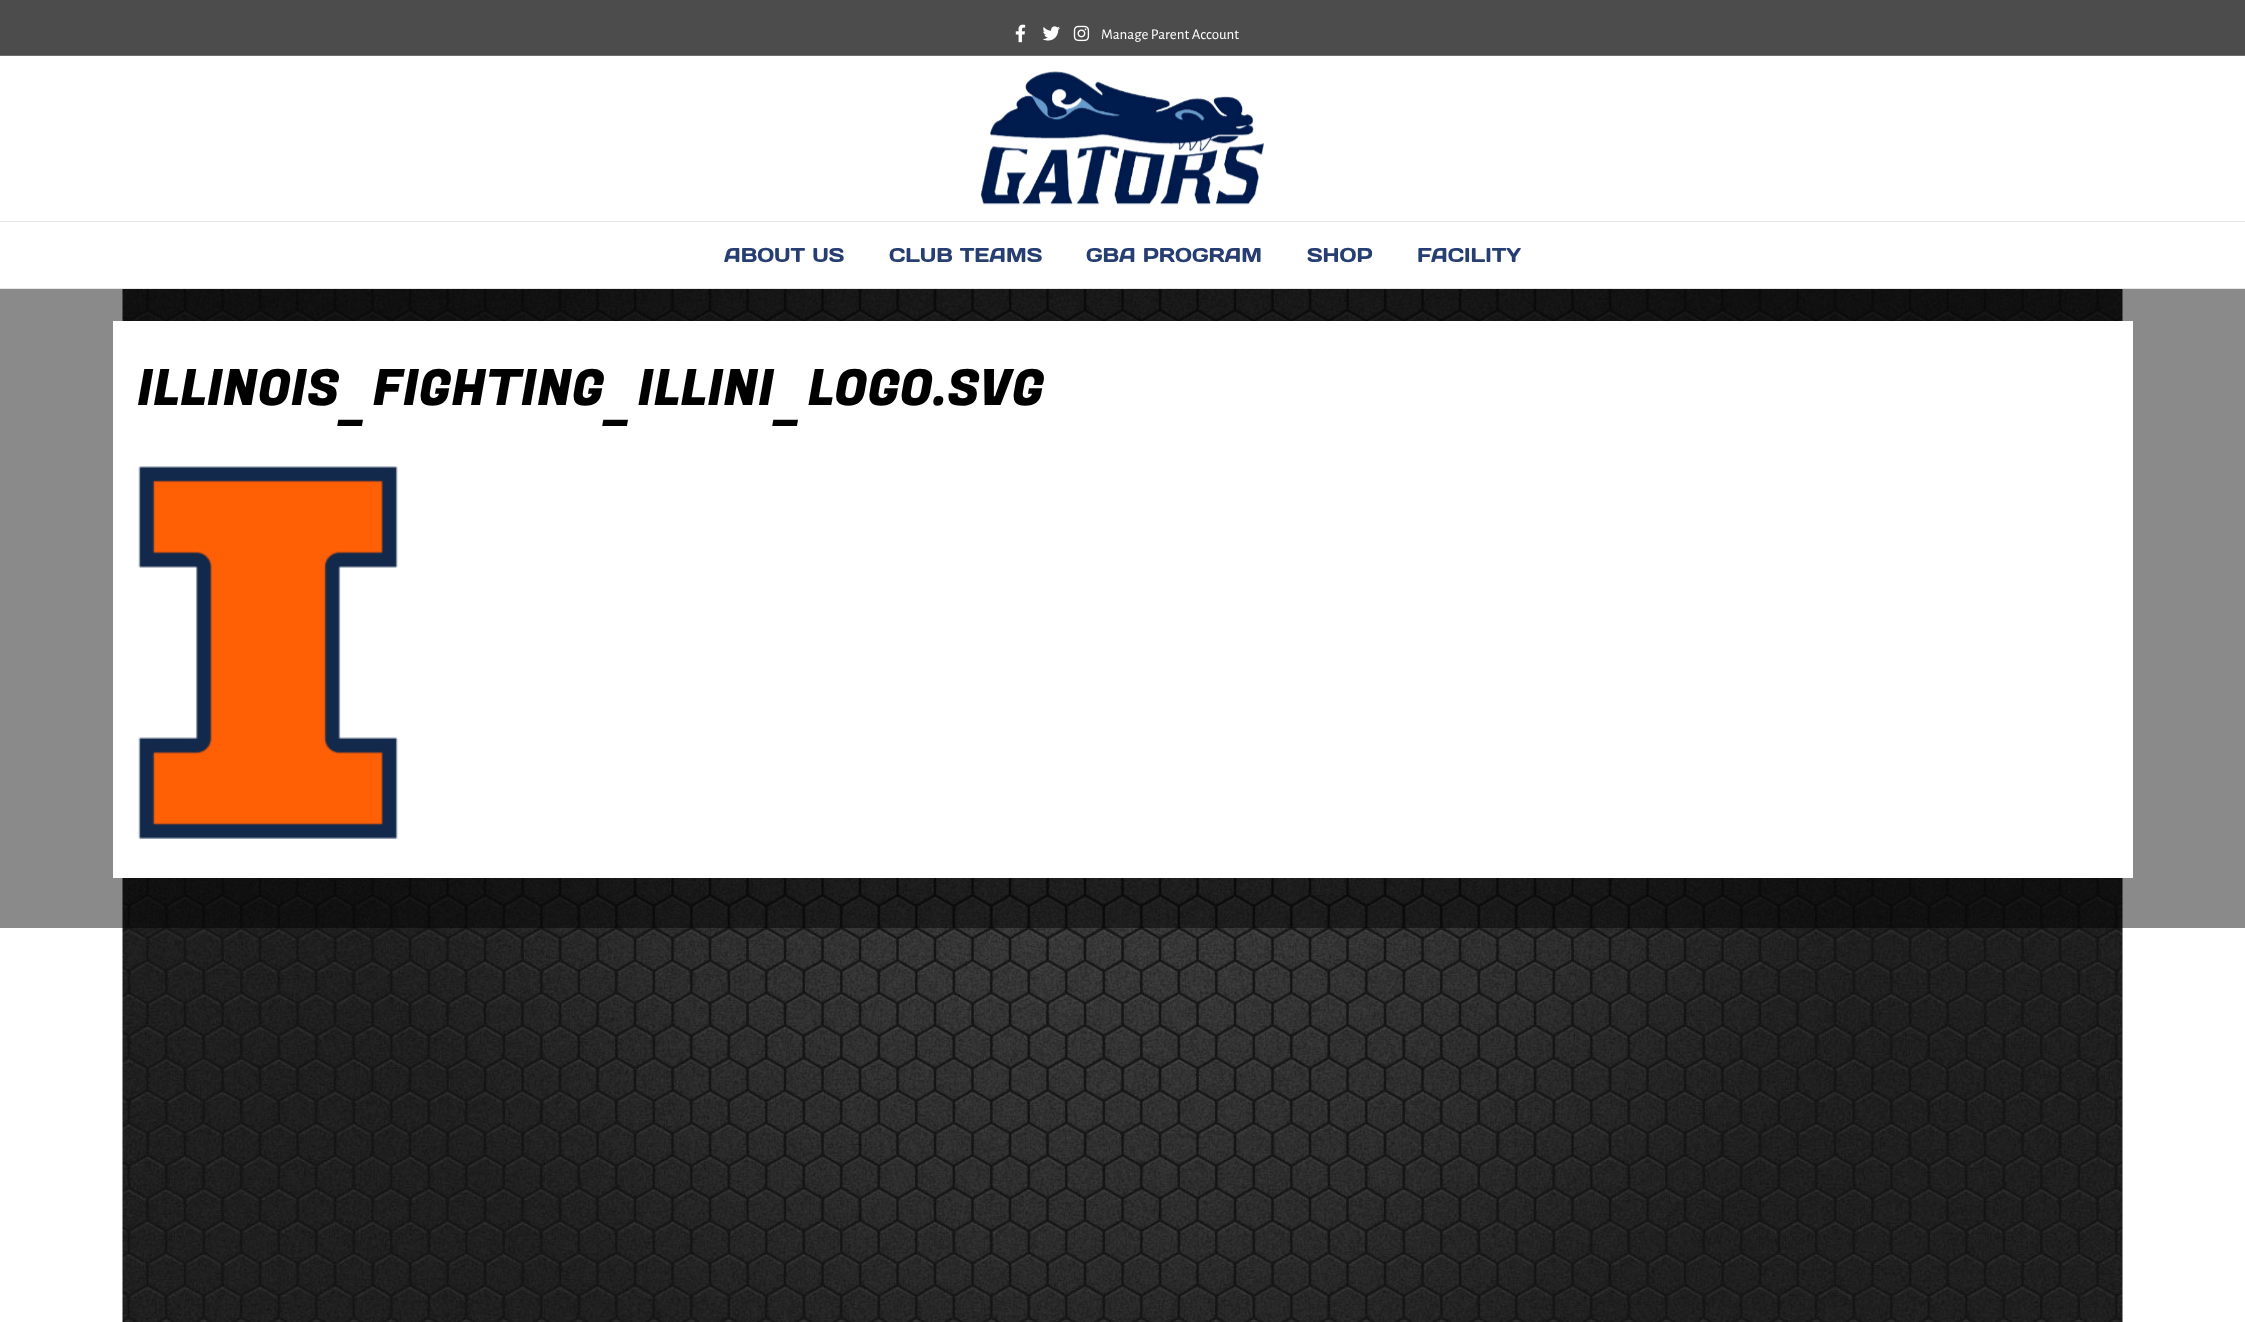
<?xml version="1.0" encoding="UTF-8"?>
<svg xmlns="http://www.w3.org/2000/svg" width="2245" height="1322">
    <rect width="100%" height="100%" fill="#FFFFFF"/>
    <image x="122" y="289" width="2001" height="1033" href="img_01.png"/>
    <rect x="0" y="0" width="2245" height="55" fill="#4C4C4C"/>
    <rect x="0" y="55" width="2245" height="1" fill="#6D6D6D"/>
    <image x="1015" y="24" width="11" height="19" href="img_02.png"/>
    <image x="1042" y="26" width="18" height="15" href="img_03.png"/>
    <image x="1073" y="25" width="17" height="17" href="img_04.png"/>
    <text x="1101" y="39" font-family="Alegreya Sans" font-size="15" fill="#FFFFFF">Manage Parent Account</text>
    <image x="980" y="71" width="285" height="134" href="img_05.png"/>
    <rect x="0" y="221" width="2245" height="1" fill="#E6E6E6"/>
    <rect x="0" y="288" width="2245" height="1" fill="#E6E6E6"/>
    <text x="724" y="262" font-family="Days One" font-size="20" fill="#273E72">ABOUT US</text>
    <text x="889" y="262" font-family="Days One" font-size="20" fill="#273E72">CLUB TEAMS</text>
    <text x="1086" y="262" font-family="Days One" font-size="20" fill="#273E72">GBA PROGRAM</text>
    <text x="1307" y="262" font-family="Days One" font-size="20" fill="#273E72">SHOP</text>
    <text x="1417" y="262" font-family="Days One" font-size="20" fill="#273E72">FACILITY</text>
    <rect x="0" y="289" width="2245" height="639" fill="#000000" fill-opacity="0.46"/>
    <rect x="113" y="321" width="2020" height="557" fill="#FFFFFF"/>
    <text x="137" y="405" font-family="Fugaz One" font-size="50" fill="#000000">ILLINOIS_FIGHTING_ILLINI_LOGO.SVG</text>
    <image x="138" y="466" width="260" height="373" href="img_06.png"/>
</svg>
